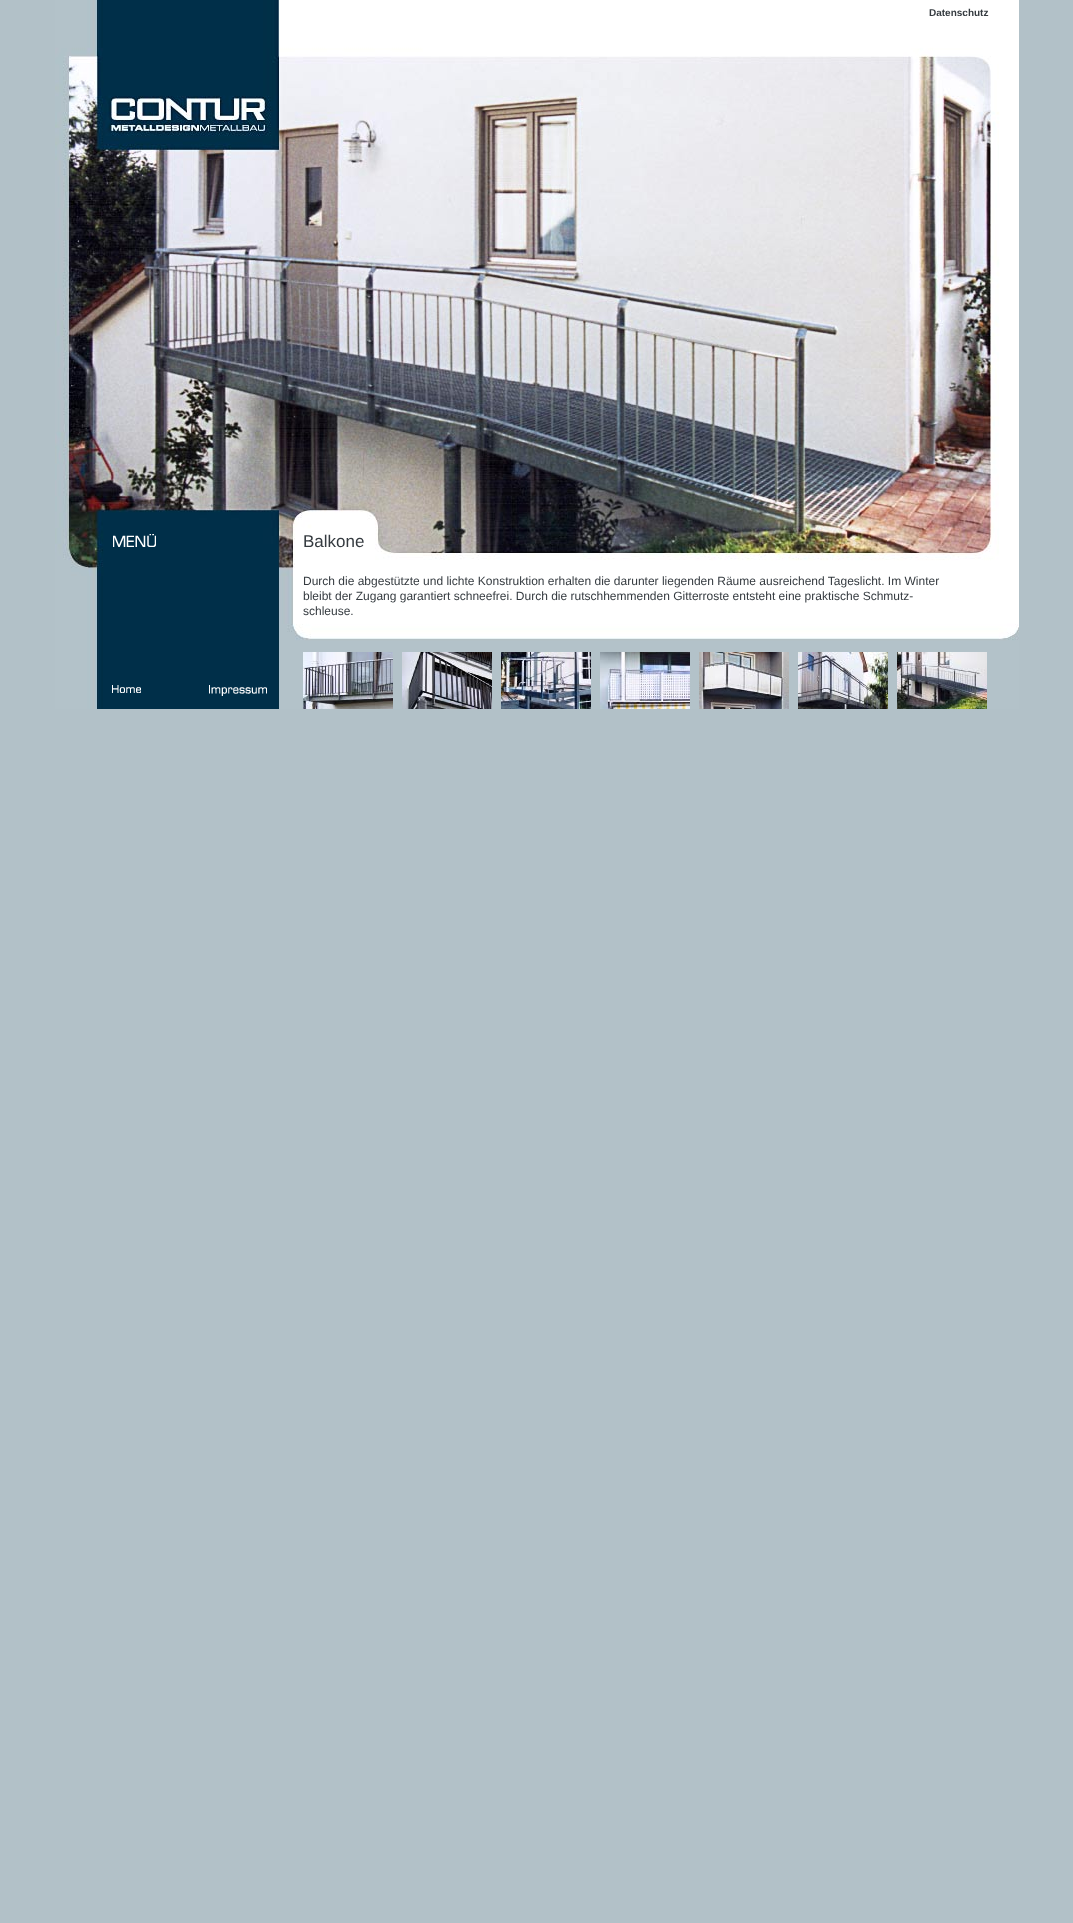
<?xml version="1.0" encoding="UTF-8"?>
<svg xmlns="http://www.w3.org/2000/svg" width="1073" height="1923">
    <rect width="100%" height="100%" fill="#B2C1C8"/>
    <image x="55" y="0" width="964" height="709" href="img_01.png"/>
    <text x="929" y="16" font-family="Liberation Sans" font-size="10" font-weight="700" fill="#353B40">Datenschutz</text>
    <image x="113" y="534" width="43" height="13" href="img_02.png"/>
    <image x="112" y="685" width="29" height="8" href="img_03.png"/>
    <image x="209" y="685" width="58" height="11" href="img_04.png"/>
    <text x="303" y="547" font-family="Liberation Sans" font-size="17" fill="#353B40">Balkone</text>
    <text font-family="Liberation Sans" font-size="12" fill="#353B40">
        <tspan x="303" y="585">Durch die abgestützte und lichte Konstruktion erhalten die darunter liegenden Räume ausreichend Tageslicht. Im Winter</tspan>
        <tspan x="303" y="600">bleibt der Zugang garantiert schneefrei. Durch die rutschhemmenden Gitterroste entsteht eine praktische Schmutz-</tspan>
        <tspan x="303" y="615">schleuse.</tspan>
    </text>
    <image x="303" y="652" width="90" height="57" href="img_05.png"/>
    <image x="402" y="652" width="90" height="57" href="img_06.png"/>
    <image x="501" y="652" width="90" height="57" href="img_07.png"/>
    <image x="600" y="652" width="90" height="57" href="img_08.png"/>
    <image x="699" y="652" width="90" height="57" href="img_09.png"/>
    <image x="798" y="652" width="90" height="57" href="img_10.png"/>
    <image x="897" y="652" width="90" height="57" href="img_11.png"/>
</svg>
